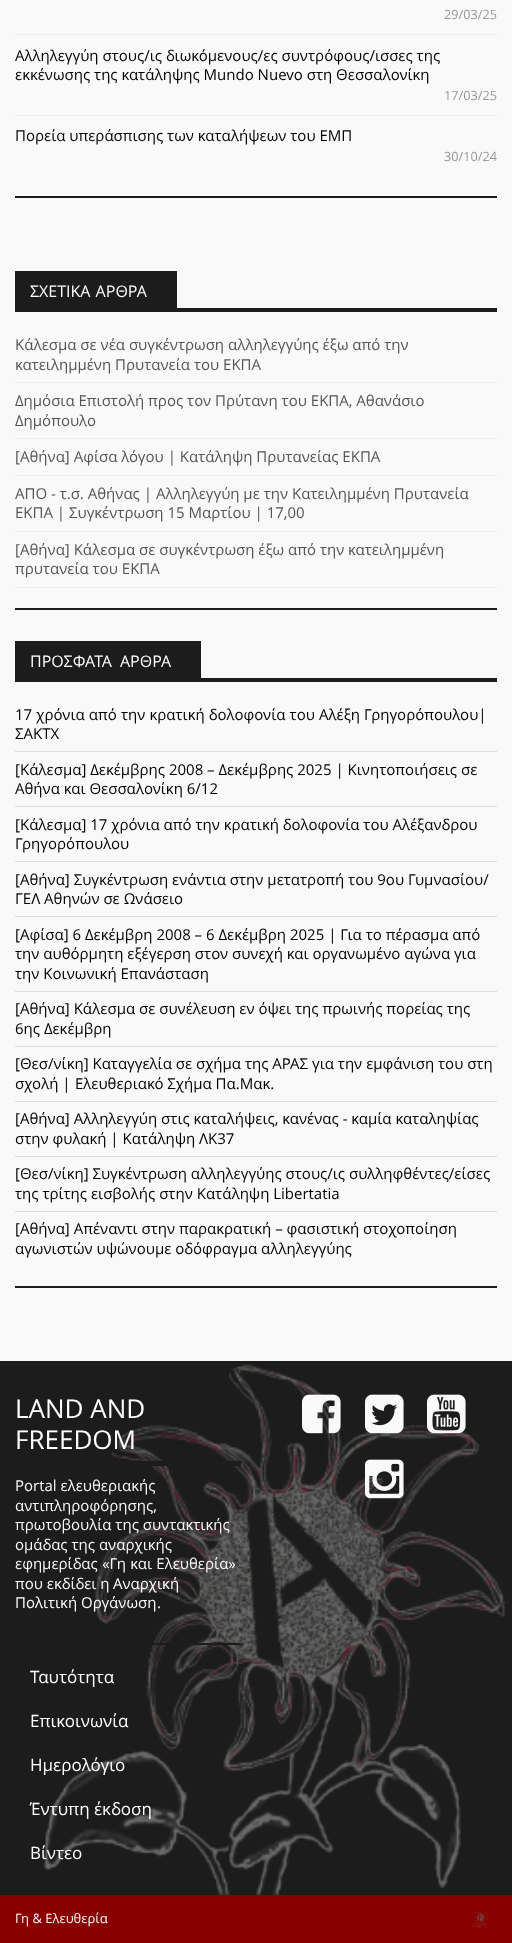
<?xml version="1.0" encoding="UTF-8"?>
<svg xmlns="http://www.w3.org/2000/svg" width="512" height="1943">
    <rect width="100%" height="100%" fill="#F9F9F9"/>
    <rect x="15" y="196" width="482" height="2" fill="#1C1C1C"/>
    <text x="444" y="19" font-family="Open Sans" font-size="12.75" fill="#999999">29/03/25</text>
    <rect x="15" y="34" width="482" height="1" fill="#EEEEEE"/>
    <text font-family="Open Sans" font-size="15" fill="#000000">
        <tspan x="15" y="61">Αλληλεγγύη στους/ις διωκόμενους/ες συντρόφους/ισσες της</tspan>
        <tspan x="15" y="80">εκκένωσης της κατάληψης Mundo Nuevo στη Θεσσαλονίκη</tspan>
    </text>
    <text x="444" y="100" font-family="Open Sans" font-size="12.75" fill="#999999">17/03/25</text>
    <rect x="15" y="115" width="482" height="1" fill="#EEEEEE"/>
    <text x="15" y="141" font-family="Open Sans" font-size="15" fill="#000000">Πορεία υπεράσπισης των καταλήψεων του ΕΜΠ</text>
    <text x="444" y="161" font-family="Open Sans" font-size="12.75" fill="#999999">30/10/24</text>
    <rect x="15" y="608" width="482" height="2" fill="#1C1C1C"/>
    <rect x="15" y="308" width="482" height="4" fill="#1C1C1C"/>
    <rect x="15" y="271" width="162" height="37" fill="#1C1C1C"/>
    <text x="30" y="297" word-spacing="1" font-family="Open Sans" font-size="16" fill="#FFFFFF">ΣΧΕΤΙΚΑ ΑΡΘΡΑ</text>
    <rect x="15" y="382" width="482" height="1" fill="#EEEEEE"/>
    <text font-family="Open Sans" font-size="15" fill="#555555">
        <tspan x="15" y="350">Κάλεσμα σε νέα συγκέντρωση αλληλεγγύης έξω από την</tspan>
        <tspan x="15" y="370">κατειλημμένη Πρυτανεία του ΕΚΠΑ</tspan>
    </text>
    <rect x="15" y="438" width="482" height="1" fill="#EEEEEE"/>
    <text font-family="Open Sans" font-size="15" fill="#555555">
        <tspan x="15" y="406">Δημόσια Επιστολή προς τον Πρύτανη του ΕΚΠΑ, Αθανάσιο</tspan>
        <tspan x="15" y="426">Δημόπουλο</tspan>
    </text>
    <rect x="15" y="475" width="482" height="1" fill="#EEEEEE"/>
    <text x="15" y="462" font-family="Open Sans" font-size="15" fill="#555555">[Αθήνα] Αφίσα λόγου | Κατάληψη Πρυτανείας ΕΚΠΑ</text>
    <rect x="15" y="531" width="482" height="1" fill="#EEEEEE"/>
    <text font-family="Open Sans" font-size="15" fill="#555555">
        <tspan x="15" y="499">ΑΠΟ - τ.σ. Αθήνας | Αλληλεγγύη με την Κατειλημμένη Πρυτανεία</tspan>
        <tspan x="15" y="518">ΕΚΠΑ | Συγκέντρωση 15 Μαρτίου | 17,00</tspan>
    </text>
    <rect x="15" y="587" width="482" height="1" fill="#EEEEEE"/>
    <text x="15" y="555" font-family="Open Sans" font-size="15" fill="#555555">[Αθήνα] Κάλεσμα σε συγκέντρωση έξω από την</text>
    <text x="348" y="555" font-family="Open Sans" font-size="15" fill="#555555">κατειλημμένη</text>
    <text x="15" y="574" font-family="Open Sans" font-size="15" fill="#555555">πρυτανεία του ΕΚΠΑ</text>
    <rect x="15" y="1286" width="482" height="2" fill="#1C1C1C"/>
    <rect x="15" y="678" width="482" height="4" fill="#1C1C1C"/>
    <rect x="15" y="641" width="186" height="37" fill="#1C1C1C"/>
    <text x="30" y="667" word-spacing="4" font-family="Open Sans" font-size="16" fill="#FFFFFF">ΠΡΟΣΦΑΤΑ ΑΡΘΡΑ</text>
    <rect x="15" y="751" width="482" height="1" fill="#DDDDDD"/>
    <text font-family="Open Sans" font-size="15" fill="#000000">
        <tspan x="15" y="720" word-spacing="0.25">17 χρόνια από την κρατική δολοφονία του Αλέξη Γρηγορόπουλου|</tspan>
        <tspan x="15" y="739">ΣΑΚΤΧ</tspan>
    </text>
    <rect x="15" y="806" width="482" height="1" fill="#DDDDDD"/>
    <text font-family="Open Sans" font-size="15" fill="#000000">
        <tspan x="15" y="775">[Κάλεσμα] Δεκέμβρης 2008 – Δεκέμβρης 2025 | Κινητοποιήσεις σε</tspan>
        <tspan x="15" y="794">Αθήνα και Θεσσαλονίκη 6/12</tspan>
    </text>
    <rect x="15" y="861" width="482" height="1" fill="#DDDDDD"/>
    <text font-family="Open Sans" font-size="15" fill="#000000">
        <tspan x="15" y="830">[Κάλεσμα] 17 χρόνια από την κρατική δολοφονία του Αλέξανδρου</tspan>
        <tspan x="15" y="849">Γρηγορόπουλου</tspan>
    </text>
    <rect x="15" y="916" width="482" height="1" fill="#DDDDDD"/>
    <text font-family="Open Sans" font-size="15" fill="#000000">
        <tspan x="15" y="885">[Αθήνα] Συγκέντρωση ενάντια στην μετατροπή του 9ου Γυμνασίου/</tspan>
        <tspan x="15" y="904">ΓΕΛ Αθηνών σε Ωνάσειο</tspan>
    </text>
    <rect x="15" y="991" width="482" height="1" fill="#DDDDDD"/>
    <text font-family="Open Sans" font-size="15" fill="#000000">
        <tspan x="15" y="940">[Αφίσα] 6 Δεκέμβρη 2008 – 6 Δεκέμβρη 2025 | Για το πέρασμα από</tspan>
        <tspan x="15" y="959">την αυθόρμητη εξέγερση στον συνεχή και οργανωμένο αγώνα για</tspan>
        <tspan x="15" y="979">την Κοινωνική Επανάσταση</tspan>
    </text>
    <rect x="15" y="1046" width="482" height="1" fill="#DDDDDD"/>
    <text font-family="Open Sans" font-size="15" fill="#000000">
        <tspan x="15" y="1014">[Αθήνα] Κάλεσμα σε συνέλευση εν όψει της πρωινής πορείας της</tspan>
        <tspan x="15" y="1034">6ης Δεκέμβρη</tspan>
    </text>
    <rect x="15" y="1101" width="482" height="1" fill="#DDDDDD"/>
    <text font-family="Open Sans" font-size="15" fill="#000000">
        <tspan x="15" y="1069">[Θεσ/νίκη] Καταγγελία σε σχήμα της ΑΡΑΣ για την εμφάνιση του στη</tspan>
        <tspan x="15" y="1089">σχολή |</tspan>
    </text>
    <text x="75" y="1089" font-family="Open Sans" font-size="15" fill="#000000">Ελευθεριακό Σχήμα Πα.Μακ.</text>
    <rect x="15" y="1156" width="482" height="1" fill="#DDDDDD"/>
    <text font-family="Open Sans" font-size="15" fill="#000000">
        <tspan x="15" y="1124">[Αθήνα] Αλληλεγγύη στις καταλήψεις, κανένας - καμία καταληψίας</tspan>
        <tspan x="15" y="1144">στην φυλακή | Κατάληψη ΛΚ37</tspan>
    </text>
    <rect x="15" y="1211" width="482" height="1" fill="#DDDDDD"/>
    <text font-family="Open Sans" font-size="15" fill="#000000">
        <tspan x="15" y="1179">[Θεσ/νίκη] Συγκέντρωση αλληλεγγύης στους/ις συλληφθέντες/είσες</tspan>
        <tspan x="15" y="1199">της τρίτης εισβολής στην Κατάληψη Libertatia</tspan>
    </text>
    <text font-family="Open Sans" font-size="15" fill="#000000">
        <tspan x="15" y="1234">[Αθήνα] Απέναντι στην παρακρατική – φασιστική στοχοποίηση</tspan>
        <tspan x="15" y="1254">αγωνιστών υψώνουμε οδόφραγμα αλληλεγγύης</tspan>
    </text>
    <rect x="0" y="1361" width="512" height="534" fill="#1C1C1C"/>
    <image x="43" y="1364" width="464" height="531" href="img_01.png"/>
    <rect x="152" y="1643" width="89" height="2" fill="#1C1C1C"/>
    <rect x="134" y="1461" width="107" height="5" fill="#1C1C1C"/>
    <text font-family="Open Sans" font-size="26" fill="#FFFFFF">
        <tspan x="15" y="1418">LAND AND</tspan>
        <tspan x="15" y="1449">FREEDOM</tspan>
    </text>
    <text font-family="Open Sans" font-size="15" fill="#F9F9F9">
        <tspan x="15" y="1491">Portal ελευθεριακής</tspan>
        <tspan x="15" y="1511">αντιπληροφόρησης,</tspan>
        <tspan x="15" y="1530">πρωτοβουλία της συντακτικής</tspan>
        <tspan x="15" y="1550">ομάδας της αναρχικής</tspan>
        <tspan x="15" y="1569" word-spacing="0.5">εφημερίδας «Γη και Ελευθερία»</tspan>
        <tspan x="15" y="1589">που εκδίδει η</tspan>
    </text>
    <text x="113" y="1589" font-family="Open Sans" font-size="15" fill="#FFFFFF">Αναρχική</text>
    <text x="15" y="1608" font-family="Open Sans" font-size="15" fill="#FFFFFF">Πολιτική Οργάνωση</text>
    <text x="157" y="1608" font-family="Open Sans" font-size="15" fill="#F9F9F9">.</text>
    <image x="302" y="1394" width="39" height="40" href="img_02.png"/>
    <image x="365" y="1394" width="39" height="40" href="img_03.png"/>
    <image x="427" y="1394" width="39" height="40" href="img_04.png"/>
    <image x="365" y="1459" width="39" height="40" href="img_05.png"/>
    <text x="30" y="1683" font-family="Open Sans" font-size="17" fill="#FFFFFF">Ταυτότητα</text>
    <text x="30" y="1727" font-family="Open Sans" font-size="17" fill="#FFFFFF">Επικοινωνία</text>
    <text x="30" y="1771" font-family="Open Sans" font-size="17" fill="#FFFFFF">Ημερολόγιο</text>
    <text x="30" y="1815" font-family="Open Sans" font-size="17" fill="#FFFFFF">Έντυπη έκδοση</text>
    <text x="30" y="1859" font-family="Open Sans" font-size="17" fill="#FFFFFF">Βίντεο</text>
    <rect x="0" y="1895" width="512" height="48" fill="#8A0000"/>
    <image x="472" y="1910" width="16" height="18" href="img_06.png"/>
    <text x="15" y="1923" font-family="Open Sans" font-size="13" fill="#F9F9F9">Γη &amp; Ελευθερία</text>
</svg>
